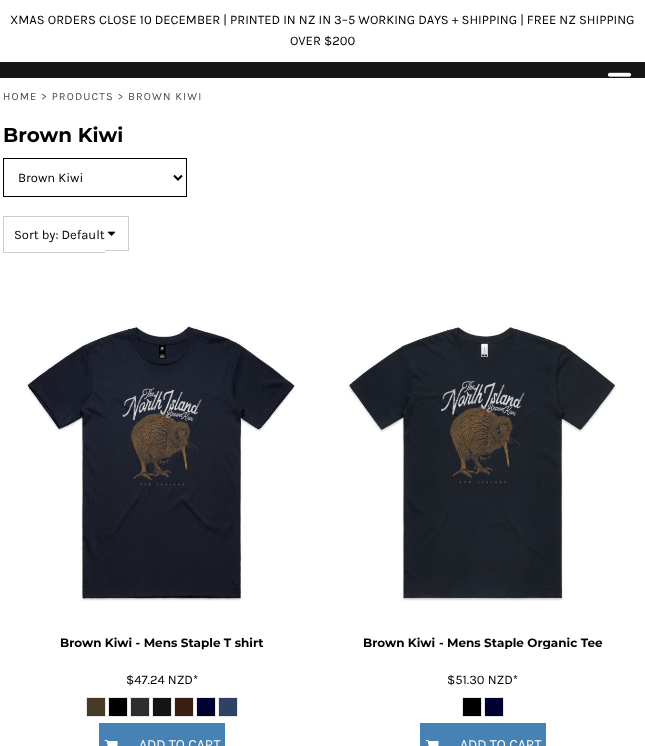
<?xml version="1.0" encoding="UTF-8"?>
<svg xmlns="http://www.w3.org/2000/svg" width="645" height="746">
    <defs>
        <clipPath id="clip1"><rect x="324" y="637" width="318" height="12"/></clipPath>
    </defs>
    <rect width="100%" height="100%" fill="#FFFFFF"/>
    <text x="10" y="24" font-family="Karla" font-size="13" fill="#000000">XMAS ORDERS CLOSE 10 DECEMBER | PRINTED IN NZ IN 3–5 WORKING DAYS + SHIPPING | FREE NZ SHIPPING</text>
    <text x="290" y="45" font-family="Karla" font-size="13" fill="#000000">OVER $200</text>
    <rect x="0" y="62" width="645" height="16" fill="#151515"/>
    <image x="607" y="72" width="25" height="5" href="img_01.png"/>
    <text x="3" y="100" font-family="Karla" font-size="11" letter-spacing="1.1" fill="#4D4D4D">HOME &gt; PRODUCTS &gt; BROWN KIWI</text>
    <text x="3" y="142" font-family="Montserrat" font-size="20" font-weight="100" fill="#000000">Brown Kiwi</text>
    <rect x="3.5" y="158.5" width="183" height="38" fill="none" stroke="#000000"/>
    <path d="M 174 175.5 L 178 179.5 L 182 175.5" fill="none" stroke="#000000" stroke-width="2"/>
    <text x="18" y="182" font-family="Karla" font-size="13" fill="#000000">Brown Kiwi</text>
    <rect x="3" y="216" width="126" height="1" fill="#CCCCCC"/>
    <rect x="3" y="252" width="102" height="1" fill="#CCCCCC"/>
    <rect x="3" y="216" width="1" height="37" fill="#CCCCCC"/>
    <rect x="128" y="216" width="1" height="35" fill="#CCCCCC"/>
    <rect x="105" y="250" width="24" height="1" fill="#CCCCCC"/>
    <text x="14" y="239" font-family="Karla" font-size="13" fill="#000000">Sort by: Default</text>
    <image x="107" y="231" width="9" height="5" href="img_02.png"/>
    <image x="25" y="326" width="270" height="275" href="img_03.png"/>
    <text x="60" y="647" font-family="Montserrat" font-size="12" font-weight="100" fill="#000000">Brown Kiwi - Mens Staple T shirt</text>
    <text x="126" y="684" font-family="Karla" font-size="13" fill="#000000">$47.24 NZD*</text>
    <rect x="86.5" y="697.5" width="19" height="19" fill="none" stroke="#E6E6E6"/>
    <rect x="87" y="698" width="18" height="18" fill="#453B27"/>
    <rect x="108.5" y="697.5" width="19" height="19" fill="none" stroke="#E6E6E6"/>
    <rect x="109" y="698" width="18" height="18" fill="#000000"/>
    <rect x="130.5" y="697.5" width="19" height="19" fill="none" stroke="#E6E6E6"/>
    <rect x="131" y="698" width="18" height="18" fill="#2E2E2E"/>
    <rect x="152.5" y="697.5" width="19" height="19" fill="none" stroke="#E6E6E6"/>
    <rect x="153" y="698" width="18" height="18" fill="#141416"/>
    <rect x="174.5" y="697.5" width="19" height="19" fill="none" stroke="#E6E6E6"/>
    <rect x="175" y="698" width="18" height="18" fill="#3A1E12"/>
    <rect x="196.5" y="697.5" width="19" height="19" fill="none" stroke="#E6E6E6"/>
    <rect x="197" y="698" width="18" height="18" fill="#000030"/>
    <rect x="218.5" y="697.5" width="19" height="19" fill="none" stroke="#E6E6E6"/>
    <rect x="219" y="698" width="18" height="18" fill="#2D4265"/>
    <rect x="99" y="723" width="126" height="23" fill="#4682B4"/>
    <image x="104" y="740" width="14" height="6" href="img_04.png"/>
    <text x="139" y="749" font-family="Karla" font-size="14" fill="#FFFFFF">ADD TO CART</text>
    <image x="346" y="326" width="270" height="275" href="img_05.png"/>
    <text x="363" y="647" font-family="Montserrat" font-size="12" font-weight="100" fill="#000000">Brown Kiwi</text>
    <g clip-path="url(#clip1)">
        <text x="439" y="647" font-family="Montserrat" font-size="12" font-weight="100" fill="#000000">- Mens Staple Organic Tee</text>
    </g>
    <text x="447" y="684" font-family="Karla" font-size="13" fill="#000000">$51.30 NZD*</text>
    <rect x="462.5" y="697.5" width="19" height="19" fill="none" stroke="#E6E6E6"/>
    <rect x="463" y="698" width="18" height="18" fill="#000000"/>
    <rect x="484.5" y="697.5" width="19" height="19" fill="none" stroke="#E6E6E6"/>
    <rect x="485" y="698" width="18" height="18" fill="#000030"/>
    <rect x="420" y="723" width="126" height="23" fill="#4682B4"/>
    <image x="425" y="740" width="14" height="6" href="img_04.png"/>
    <text x="460" y="749" font-family="Karla" font-size="14" fill="#FFFFFF">ADD TO CART</text>
</svg>
